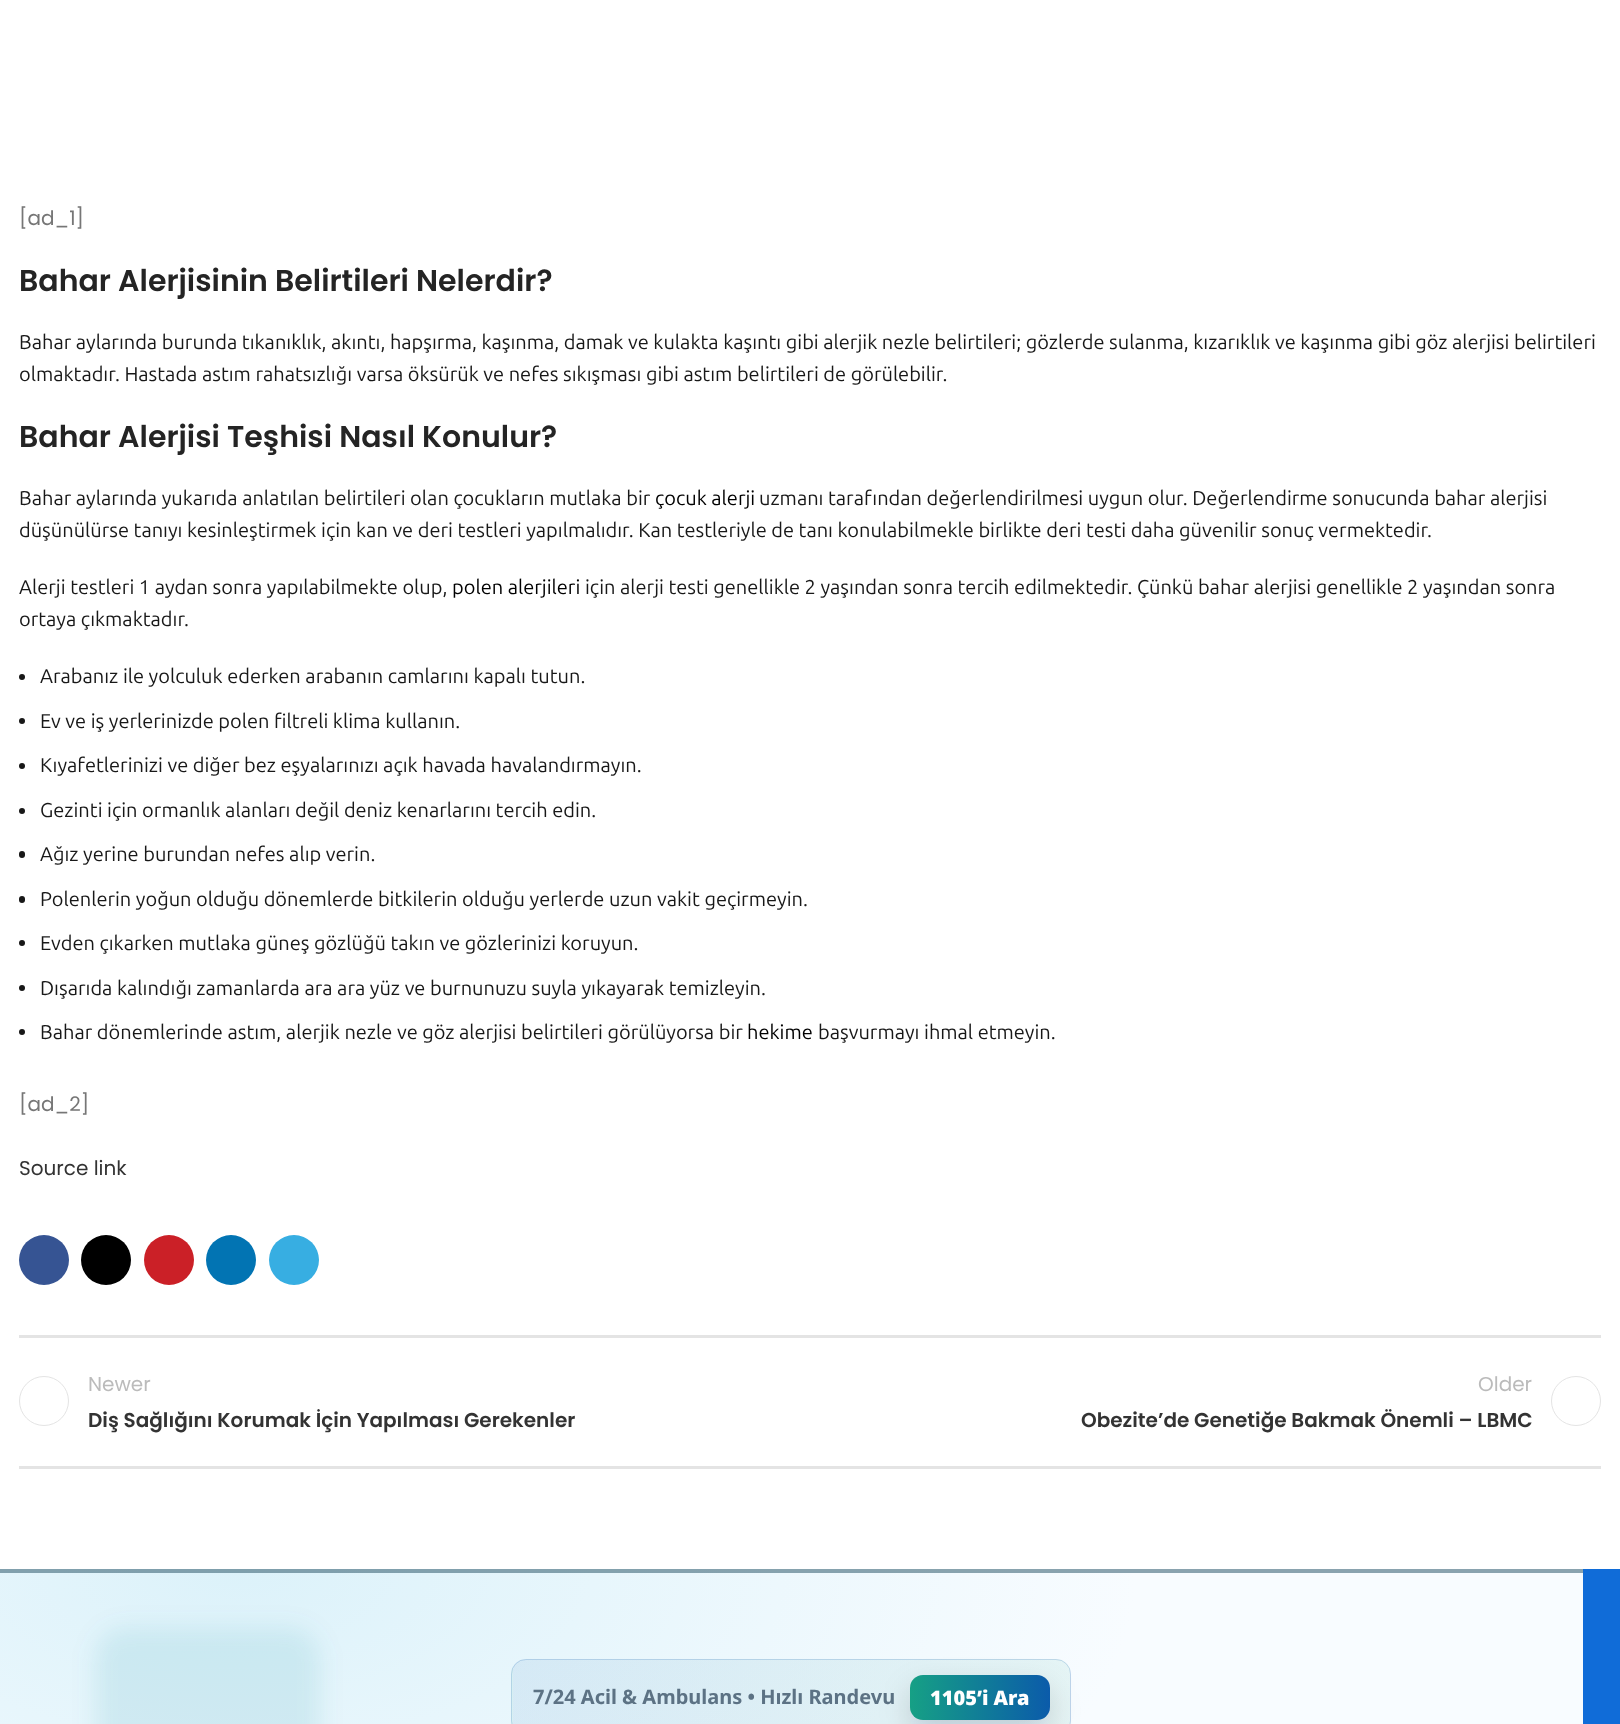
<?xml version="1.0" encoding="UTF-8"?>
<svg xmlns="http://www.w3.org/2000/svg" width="1620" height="1724">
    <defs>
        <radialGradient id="g1" gradientUnits="userSpaceOnUse" cx="0" cy="0" r="1" gradientTransform="matrix(1500 0 0 750 237 1569)"><stop offset="0" stop-color="#DCF2FA"/><stop offset="0.6" stop-color="#F8FCFF"/></radialGradient>
        <clipPath id="clip1"><rect x="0" y="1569" width="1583" height="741"/></clipPath>
        <filter id="blur1" x="-50%" y="-200%" width="200%" height="500%"><feGaussianBlur stdDeviation="0.5"/></filter>
        <filter id="blur2" x="-50%" y="-200%" width="200%" height="500%"><feGaussianBlur stdDeviation="12.5"/></filter>
        <clipPath id="clip2"><rect x="511" y="1659" width="560" height="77" rx="15"/></clipPath>
        <linearGradient id="g2" gradientUnits="userSpaceOnUse" x1="-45" y1="1698" x2="513" y2="1698"><stop offset="0" stop-color="#0B5BAA" stop-opacity="0.08"/><stop offset="1" stop-color="#16A085" stop-opacity="0.08"/></linearGradient>
        <linearGradient id="g3" gradientUnits="userSpaceOnUse" x1="513" y1="1698" x2="1070" y2="1698"><stop offset="0" stop-color="#0B5BAA" stop-opacity="0.08"/><stop offset="1" stop-color="#16A085" stop-opacity="0.08"/></linearGradient>
        <linearGradient id="g4" gradientUnits="userSpaceOnUse" x1="1070" y1="1698" x2="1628" y2="1698"><stop offset="0" stop-color="#E4EFF8"/><stop offset="1" stop-color="#E5F5F5"/></linearGradient>
        <filter id="blur3" x="-50%" y="-200%" width="200%" height="500%"><feGaussianBlur stdDeviation="15"/></filter>
        <linearGradient id="g5" gradientUnits="userSpaceOnUse" x1="910" y1="1698" x2="1050" y2="1698"><stop offset="0" stop-color="#16A085"/><stop offset="1" stop-color="#0B5BAA"/></linearGradient>
    </defs>
    <rect width="100%" height="100%" fill="#FFFFFF"/>
    <text x="19" y="225" font-family="Poppins" font-size="20" fill="#767676">[ad_1]</text>
    <text x="19" y="291" font-family="Poppins" font-size="30" font-weight="600" fill="#242424">Bahar Alerjisinin Belirtileri Nelerdir?</text>
    <text font-family="Ubuntu" font-size="20" fill="#181818">
        <tspan x="19" y="349">Bahar aylarında burunda tıkanıklık, akıntı, hapşırma, kaşınma, damak ve kulakta kaşıntı gibi alerjik nezle belirtileri; gözlerde sulanma, kızarıklık ve kaşınma gibi göz alerjisi belirtileri</tspan>
        <tspan x="19" y="381">olmaktadır. Hastada astım rahatsızlığı varsa öksürük ve nefes sıkışması gibi astım belirtileri de görülebilir.</tspan>
    </text>
    <text x="19" y="447" font-family="Poppins" font-size="30" font-weight="600" fill="#242424">Bahar Alerjisi Teşhisi Nasıl Konulur?</text>
    <text x="19" y="505" font-family="Ubuntu" font-size="20" fill="#181818">Bahar aylarında yukarıda anlatılan belirtileri olan çocukların mutlaka bir</text>
    <text x="655" y="505" font-family="Ubuntu" font-size="20" fill="#000000">çocuk alerji</text>
    <text x="759" y="505" font-family="Ubuntu" font-size="20" fill="#181818">uzmanı tarafından değerlendirilmesi uygun olur. Değerlendirme sonucunda bahar alerjisi</text>
    <text x="19" y="537" font-family="Ubuntu" font-size="20" fill="#181818">düşünülürse tanıyı kesinleştirmek için kan ve deri testleri yapılmalıdır. Kan testleriyle de tanı konulabilmekle birlikte deri testi daha güvenilir sonuç vermektedir.</text>
    <text x="19" y="594" font-family="Ubuntu" font-size="20" fill="#181818">Alerji testleri 1 aydan sonra yapılabilmekte olup,</text>
    <text x="452" y="594" font-family="Ubuntu" font-size="20" fill="#000000">polen alerjileri</text>
    <text x="585" y="594" font-family="Ubuntu" font-size="20" fill="#181818">için alerji testi genellikle 2 yaşından sonra tercih edilmektedir. Çünkü bahar alerjisi genellikle 2 yaşından sonra</text>
    <text x="19" y="626" font-family="Ubuntu" font-size="20" fill="#181818">ortaya çıkmaktadır.</text>
    <circle cx="22" cy="677" r="3" fill="#181818"/>
    <text x="40" y="683" font-family="Ubuntu" font-size="20" fill="#181818">Arabanız ile yolculuk ederken arabanın camlarını kapalı tutun.</text>
    <circle cx="22" cy="721" r="3" fill="#181818"/>
    <text x="40" y="728" font-family="Ubuntu" font-size="20" fill="#181818">Ev ve iş yerlerinizde polen filtreli klima kullanın.</text>
    <circle cx="22" cy="766" r="3" fill="#181818"/>
    <text x="40" y="772" font-family="Ubuntu" font-size="20" fill="#181818">Kıyafetlerinizi ve diğer bez eşyalarınızı açık havada havalandırmayın.</text>
    <circle cx="22" cy="811" r="3" fill="#181818"/>
    <text x="40" y="817" font-family="Ubuntu" font-size="20" fill="#181818">Gezinti için ormanlık alanları değil deniz kenarlarını tercih edin.</text>
    <rect x="19" y="851" width="6" height="7" rx="3" fill="#181818"/>
    <text x="40" y="861" font-family="Ubuntu" font-size="20" fill="#181818">Ağız yerine burundan nefes alıp verin.</text>
    <rect x="19" y="896" width="6" height="7" rx="3" fill="#181818"/>
    <text x="40" y="906" font-family="Ubuntu" font-size="20" fill="#181818">Polenlerin yoğun olduğu dönemlerde bitkilerin olduğu yerlerde uzun vakit geçirmeyin.</text>
    <circle cx="22" cy="943" r="3" fill="#181818"/>
    <text x="40" y="950" font-family="Ubuntu" font-size="20" fill="#181818">Evden çıkarken mutlaka güneş gözlüğü takın ve gözlerinizi koruyun.</text>
    <circle cx="22" cy="988" r="3" fill="#181818"/>
    <text x="40" y="995" font-family="Ubuntu" font-size="20" fill="#181818">Dışarıda kalındığı zamanlarda ara ara yüz ve burnunuzu suyla yıkayarak temizleyin.</text>
    <circle cx="22" cy="1032" r="3" fill="#181818"/>
    <text x="40" y="1039" font-family="Ubuntu" font-size="20" fill="#181818">Bahar dönemlerinde astım, alerjik nezle ve göz alerjisi belirtileri görülüyorsa bir</text>
    <text x="747" y="1039" font-family="Ubuntu" font-size="20" fill="#000000">hekime</text>
    <text x="818" y="1039" font-family="Ubuntu" font-size="20" fill="#181818">başvurmayı ihmal etmeyin.</text>
    <text x="19" y="1111" font-family="Poppins" font-size="20" fill="#767676">[ad_2]</text>
    <text x="19" y="1175" font-family="Poppins" font-size="20" fill="#333333">Source link</text>
    <circle cx="44" cy="1260" r="25" fill="#365493"/>
    <circle cx="106" cy="1260" r="25" fill="#000000"/>
    <circle cx="169" cy="1260" r="25" fill="#CB2027"/>
    <circle cx="231" cy="1260" r="25" fill="#0274B3"/>
    <circle cx="294" cy="1260" r="25" fill="#37AEE2"/>
    <rect x="19" y="1335" width="1582" height="3" fill="#E4E4E4"/>
    <rect x="19" y="1466" width="1582" height="3" fill="#E4E4E4"/>
    <circle cx="44" cy="1401" r="24.5" fill="none" stroke="#E4E4E4"/>
    <text x="88" y="1391" font-family="Poppins" font-size="20" fill="#BBBBBB">Newer</text>
    <text x="88" y="1427" font-family="Poppins" font-size="20" font-weight="600" fill="#333333">Diş Sağlığını Korumak İçin Yapılması Gerekenler</text>
    <text x="1478" y="1391" font-family="Poppins" font-size="20" fill="#BBBBBB">Older</text>
    <circle cx="1576" cy="1401" r="24.5" fill="none" stroke="#E4E4E4"/>
    <text x="1081" y="1427" font-family="Poppins" font-size="20" font-weight="600" fill="#333333">Obezite’de Genetiğe Bakmak Önemli – LBMC</text>
    <rect x="1583" y="1569" width="37" height="155" fill="#106CD8"/>
    <rect x="0" y="1569" width="1583" height="155" fill="url(#g1)"/>
    <g clip-path="url(#clip1)">
        <rect x="-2" y="1569" width="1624" height="4" fill="#345C6E" fill-opacity="0.56" filter="url(#blur1)"/>
    </g>
    <rect x="95" y="1628" width="225" height="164" rx="30" fill="#117E98" fill-opacity="0.1" filter="url(#blur2)"/>
    <g clip-path="url(#clip2)">
        <rect x="511" y="1659" width="2" height="65" fill="url(#g2)"/>
        <rect x="513" y="1659" width="557" height="65" fill="url(#g3)"/>
        <rect x="1070" y="1669" width="1" height="55" fill="url(#g4)"/>
    </g>
    <rect x="511.5" y="1659.5" width="559" height="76" rx="14.5" fill="none" stroke="#0B5BAA" stroke-opacity="0.18"/>
    <text x="533" y="1704" font-family="Noto Sans" font-size="20" font-weight="700" fill="#5C7284">7/24 Acil &amp; Ambulans • Hızlı Randevu</text>
    <rect x="910" y="1688" width="140" height="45" rx="13" fill="#06182C" fill-opacity="0.16" filter="url(#blur3)"/>
    <rect x="910" y="1675" width="140" height="45" rx="13" fill="url(#g5)"/>
    <text x="930" y="1705" font-family="Noto Sans" font-size="20" font-weight="900" fill="#FFFFFF">1105’i Ara</text>
</svg>
